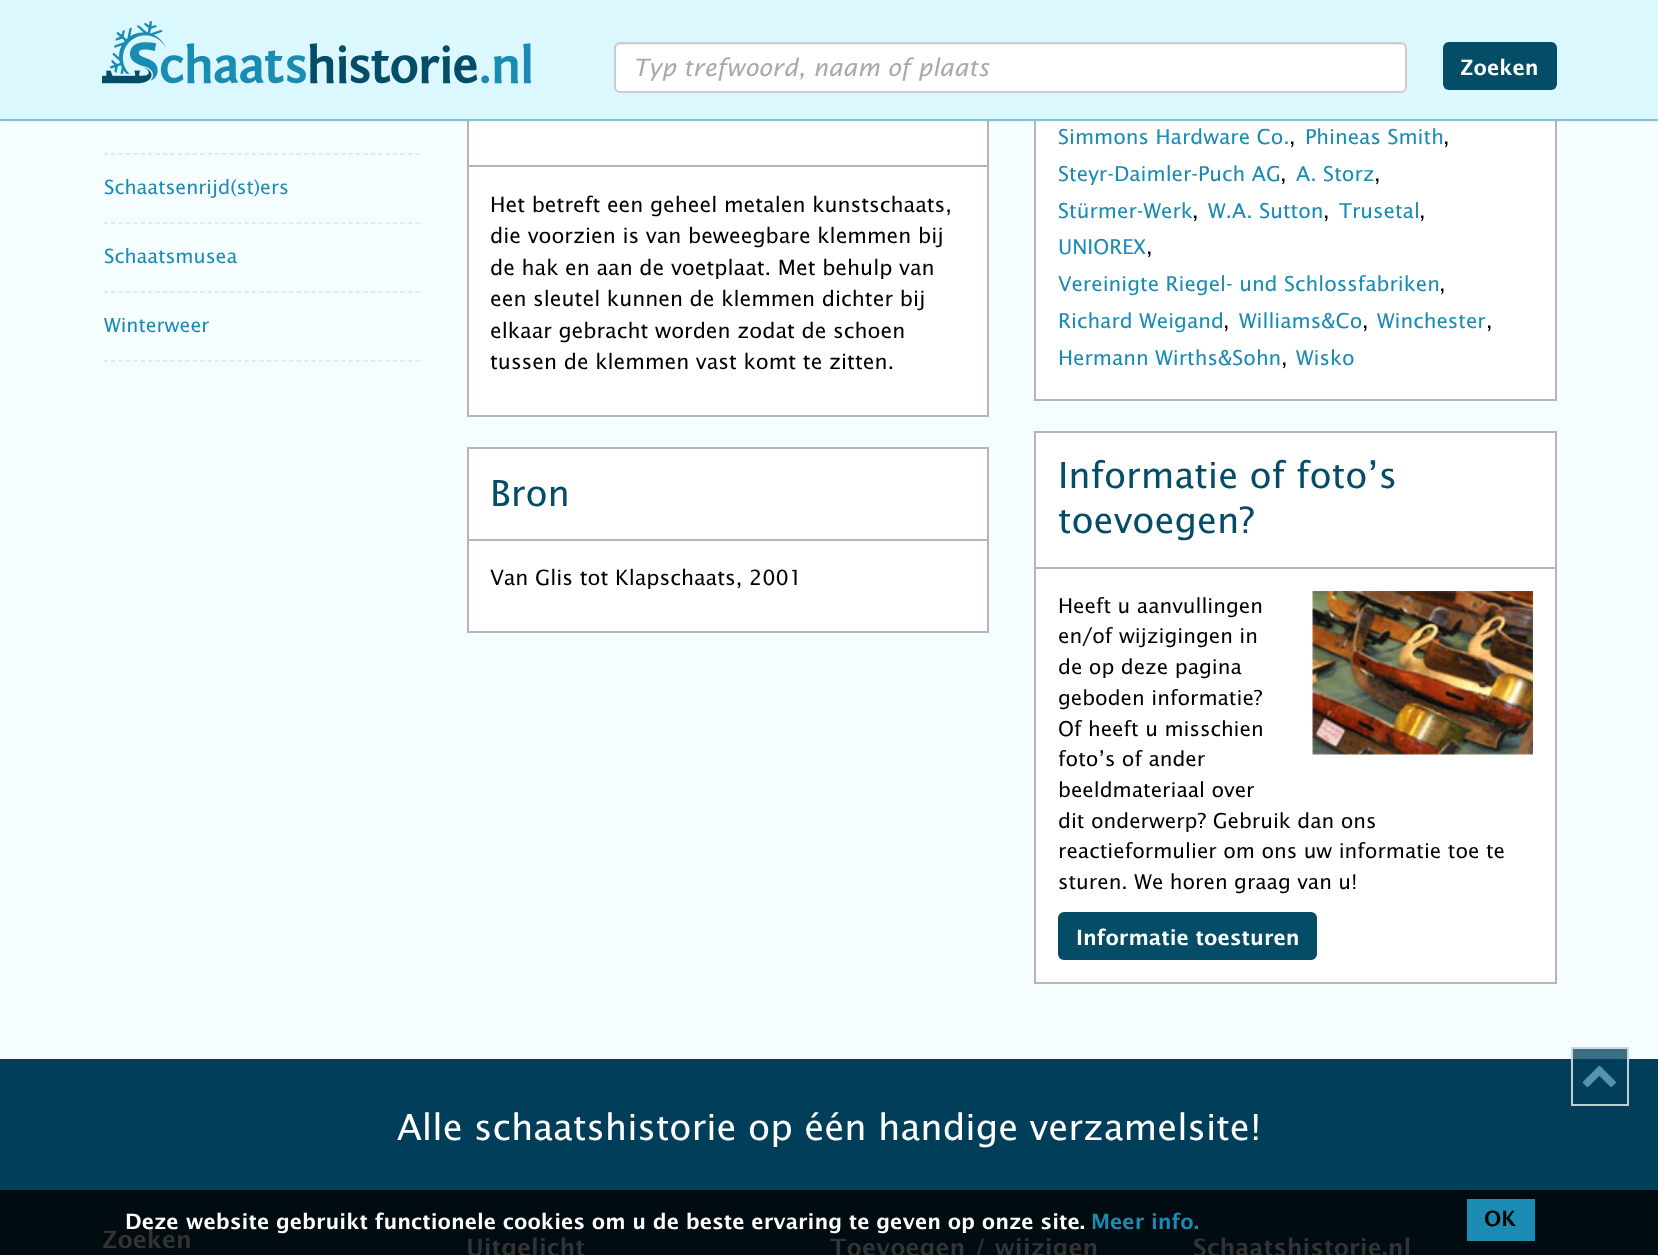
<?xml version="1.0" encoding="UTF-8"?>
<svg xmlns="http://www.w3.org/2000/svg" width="1658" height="1255">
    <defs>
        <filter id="blur1" x="-50%" y="-200%" width="200%" height="500%"><feGaussianBlur stdDeviation="1.5"/></filter>
    </defs>
    <rect width="100%" height="100%" fill="#F6FDFE"/>
    <rect x="1571" y="1047" width="58" height="12" fill="#3E6E83"/>
    <rect x="469" y="121" width="518" height="294" fill="#FFFFFF"/>
    <rect x="468" y="75" width="520" height="341" fill="none" stroke="#B5B5B5" stroke-width="2"/>
    <rect x="1036" y="121" width="519" height="278" fill="#FFFFFF"/>
    <rect x="1035" y="-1" width="521" height="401" fill="none" stroke="#B5B5B5" stroke-width="2"/>
    <rect x="0" y="0" width="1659" height="120" fill="#000000" fill-opacity="0.25" filter="url(#blur1)"/>
    <rect x="0" y="0" width="1658" height="119" fill="#DBF7FF"/>
    <rect x="0" y="119" width="1658" height="2" fill="#84C5D8"/>
    <image x="102" y="21" width="429" height="63" href="img_01.png"/>
    <rect x="614" y="42" width="793" height="51" rx="6" fill="#FFFFFF"/>
    <path d="M 620 45 H 1401 C 1403 45 1406 47 1406 50 V 49 C 1406 46 1404 44 1401 44 H 620 C 617 44 615 46 615 49 V 50 C 615 47 617 45 620 45 Z" fill="#ECECEC"/>
    <rect x="615" y="43" width="791" height="49" rx="5" fill="none" stroke="#CCCCCC" stroke-width="2"/>
    <text x="633" y="76" font-family="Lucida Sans" font-size="24" font-style="italic" fill="#AAAAAA">Typ trefwoord, naam of plaats</text>
    <rect x="1443" y="42" width="114" height="48" rx="6" fill="#054D67"/>
    <text x="1460" y="75" font-family="Lucida Sans" font-size="21" font-weight="100" fill="#FFFFFF">Zoeken</text>
    <path d="M 103.5 154 H 420" fill="none" stroke="#DDE4E5" stroke-width="1.5" stroke-dasharray="4.5 2.92"/>
    <path d="M 103.5 223 H 420" fill="none" stroke="#DDE4E5" stroke-width="1.5" stroke-dasharray="4.5 2.92"/>
    <text x="104" y="194" font-family="Lucida Sans" font-size="19.5" fill="#1A8BB3">Schaatsenrijd(st)ers</text>
    <path d="M 103.5 292 H 420" fill="none" stroke="#DDE4E5" stroke-width="1.5" stroke-dasharray="4.5 2.92"/>
    <text x="104" y="263" font-family="Lucida Sans" font-size="19.5" fill="#1A8BB3">Schaatsmusea</text>
    <path d="M 103.5 361 H 420" fill="none" stroke="#DDE4E5" stroke-width="1.5" stroke-dasharray="4.5 2.92"/>
    <text x="104" y="332" font-family="Lucida Sans" font-size="19.5" fill="#1A8BB3">Winterweer</text>
    <rect x="468" y="165" width="519" height="2" fill="#B5B5B5"/>
    <text font-family="Lucida Sans" font-size="21" fill="#000000">
        <tspan x="490" y="212">Het betreft een geheel metalen kunstschaats,</tspan>
        <tspan x="490" y="243">die voorzien is van beweegbare klemmen bij</tspan>
        <tspan x="490" y="275">de hak en aan de voetplaat. Met behulp van</tspan>
        <tspan x="490" y="306">een sleutel kunnen de klemmen dichter bij</tspan>
        <tspan x="490" y="338">elkaar gebracht worden zodat de schoen</tspan>
        <tspan x="490" y="369">tussen de klemmen vast komt te zitten.</tspan>
    </text>
    <rect x="468" y="448" width="520" height="184" fill="#FFFFFF" stroke="#B5B5B5" stroke-width="2"/>
    <rect x="468" y="539" width="519" height="2" fill="#B5B5B5"/>
    <text x="490" y="506" font-family="Lucida Sans" font-size="36" fill="#054D67">Bron</text>
    <text x="490" y="585" font-family="Lucida Sans" font-size="21" fill="#000000">Van Glis tot Klapschaats, 2001</text>
    <text x="1058" y="144" font-family="Lucida Sans" font-size="20.5" fill="#1A8BB3">Simmons Hardware Co.</text>
    <text x="1289" y="144" font-family="Lucida Sans" font-size="20.5" fill="#000000">,</text>
    <text x="1305" y="144" font-family="Lucida Sans" font-size="20.5" fill="#1A8BB3">Phineas Smith</text>
    <text x="1443" y="144" font-family="Lucida Sans" font-size="20.5" fill="#000000">,</text>
    <text x="1058" y="181" font-family="Lucida Sans" font-size="20.5" fill="#1A8BB3">Steyr-Daimler-Puch AG</text>
    <text x="1280" y="181" font-family="Lucida Sans" font-size="20.5" fill="#000000">,</text>
    <text x="1296" y="181" font-family="Lucida Sans" font-size="20.5" fill="#1A8BB3">A. Storz</text>
    <text x="1374" y="181" font-family="Lucida Sans" font-size="20.5" fill="#000000">,</text>
    <text x="1058" y="218" font-family="Lucida Sans" font-size="20.5" fill="#1A8BB3">Stürmer-Werk</text>
    <text x="1192" y="218" font-family="Lucida Sans" font-size="20.5" fill="#000000">,</text>
    <text x="1208" y="218" font-family="Lucida Sans" font-size="20.5" fill="#1A8BB3">W.A. Sutton</text>
    <text x="1323" y="218" font-family="Lucida Sans" font-size="20.5" fill="#000000">,</text>
    <text x="1339" y="218" font-family="Lucida Sans" font-size="20.5" fill="#1A8BB3">Trusetal</text>
    <text x="1419" y="218" font-family="Lucida Sans" font-size="20.5" fill="#000000">,</text>
    <text x="1058" y="254" font-family="Lucida Sans" font-size="20.5" fill="#1A8BB3">UNIOREX</text>
    <text x="1146" y="254" font-family="Lucida Sans" font-size="20.5" fill="#000000">,</text>
    <text x="1058" y="291" font-family="Lucida Sans" font-size="20.5" fill="#1A8BB3">Vereinigte Riegel- und Schlossfabriken</text>
    <text x="1439" y="291" font-family="Lucida Sans" font-size="20.5" fill="#000000">,</text>
    <text x="1058" y="328" font-family="Lucida Sans" font-size="20.5" fill="#1A8BB3">Richard Weigand</text>
    <text x="1223" y="328" font-family="Lucida Sans" font-size="20.5" fill="#000000">,</text>
    <text x="1239" y="328" font-family="Lucida Sans" font-size="20.5" fill="#1A8BB3">Williams&amp;Co</text>
    <text x="1362" y="328" font-family="Lucida Sans" font-size="20.5" fill="#000000">,</text>
    <text x="1377" y="328" font-family="Lucida Sans" font-size="20.5" fill="#1A8BB3">Winchester</text>
    <text x="1486" y="328" font-family="Lucida Sans" font-size="20.5" fill="#000000">,</text>
    <text x="1058" y="365" font-family="Lucida Sans" font-size="20.5" fill="#1A8BB3">Hermann Wirths&amp;Sohn</text>
    <text x="1281" y="365" font-family="Lucida Sans" font-size="20.5" fill="#000000">,</text>
    <text x="1296" y="365" font-family="Lucida Sans" font-size="20.5" fill="#1A8BB3">Wisko</text>
    <rect x="1035" y="432" width="521" height="551" fill="#FFFFFF" stroke="#B5B5B5" stroke-width="2"/>
    <rect x="1035" y="567" width="521" height="2" fill="#B5B5B5"/>
    <text font-family="Lucida Sans" font-size="36" fill="#054D67">
        <tspan x="1058" y="488">Informatie of foto’s</tspan>
        <tspan x="1058" y="533">toevoegen?</tspan>
    </text>
    <image x="1312" y="591" width="221" height="164" href="img_02.png"/>
    <text font-family="Lucida Sans" font-size="20.5" fill="#000000">
        <tspan x="1058" y="613">Heeft u aanvullingen</tspan>
        <tspan x="1058" y="643">en/of wijzigingen in</tspan>
        <tspan x="1058" y="674">de op deze pagina</tspan>
        <tspan x="1058" y="705">geboden informatie?</tspan>
        <tspan x="1058" y="736">Of heeft u misschien</tspan>
        <tspan x="1058" y="766">foto’s of ander</tspan>
        <tspan x="1058" y="797">beeldmateriaal over</tspan>
        <tspan x="1058" y="828">dit onderwerp? Gebruik dan ons</tspan>
        <tspan x="1058" y="858">reactieformulier om ons uw informatie toe te</tspan>
        <tspan x="1058" y="889">sturen. We horen graag van u!</tspan>
    </text>
    <rect x="1058" y="912" width="259" height="48" rx="6" fill="#054D67"/>
    <text x="1076" y="945" font-family="Lucida Sans" font-size="21" font-weight="100" fill="#FFFFFF">Informatie toesturen</text>
    <rect x="0" y="1059" width="1658" height="131" fill="#013E5A"/>
    <rect x="1572" y="1048" width="56" height="57" fill="none" stroke="#FFFFFF" stroke-opacity="0.75" stroke-width="2"/>
    <image x="1582" y="1065" width="34" height="22" href="img_03.png"/>
    <rect x="0" y="1190" width="1658" height="65" fill="#000C12"/>
    <text x="397" y="1140" font-family="Lucida Sans" font-size="36" fill="#FFFFFF">Alle schaatshistorie op één handige verzamelsite!</text>
    <text x="102" y="1248" font-family="Lucida Sans" font-size="24" font-weight="100" fill="#333333">Zoeken</text>
    <text x="466" y="1256" font-family="Lucida Sans" font-size="24" font-weight="100" fill="#333333">Uitgelicht</text>
    <text x="830" y="1256" font-family="Lucida Sans" font-size="24" font-weight="100" fill="#333333">Toevoegen / wijzigen</text>
    <text x="1193" y="1256" font-family="Lucida Sans" font-size="24" font-weight="100" fill="#333333">Schaatshistorie.nl</text>
    <text x="125" y="1229" font-family="Lucida Sans" font-size="21" font-weight="100" fill="#FFFFFF">Deze website gebruikt functionele cookies om u de beste ervaring te geven op onze site.</text>
    <text x="1091" y="1229" font-family="Lucida Sans" font-size="21" font-weight="100" fill="#1A8BB3">Meer info.</text>
    <rect x="1467" y="1199" width="68" height="42" fill="#1A8BB3"/>
    <text x="1484" y="1226" font-family="Lucida Sans" font-size="21" font-weight="100" fill="#000000">OK</text>
</svg>
